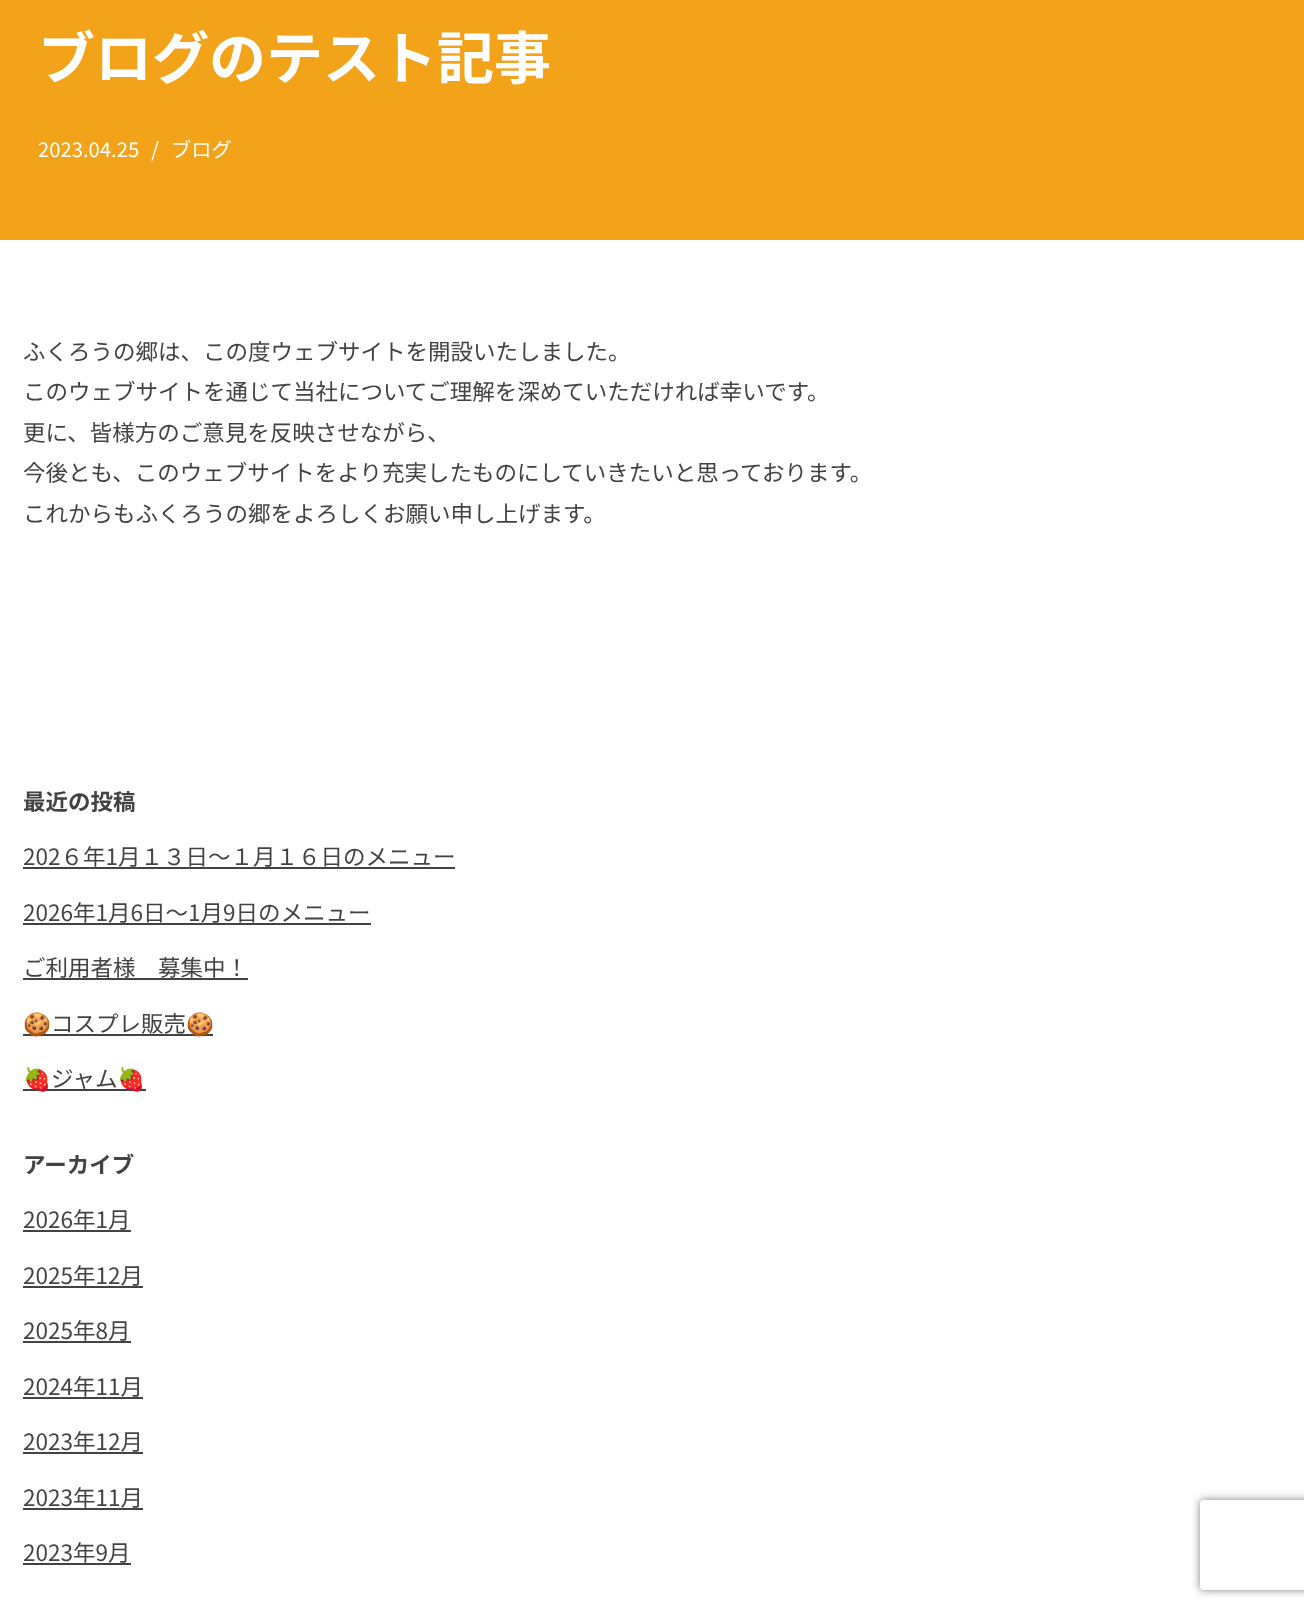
<?xml version="1.0" encoding="UTF-8"?>
<svg xmlns="http://www.w3.org/2000/svg" width="1304" height="1610">
    <defs>
        <clipPath id="clip1"><path d="M 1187 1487 H 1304 V 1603 H 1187 Z M 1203 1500 H 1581 C 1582.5 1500 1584 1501.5 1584 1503 V 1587 C 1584 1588.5 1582.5 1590 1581 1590 H 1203 C 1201.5 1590 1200 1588.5 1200 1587 V 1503 C 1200 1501.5 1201.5 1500 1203 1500 Z" clip-rule="evenodd"/></clipPath>
        <filter id="blur1" x="-50%" y="-200%" width="200%" height="500%"><feGaussianBlur stdDeviation="4"/></filter>
    </defs>
    <rect width="100%" height="100%" fill="#FFFFFF"/>
    <rect x="0" y="0" width="1304" height="240" fill="#F2A31A"/>
    <text x="38" y="79" font-family="Noto Sans JP" font-size="57" font-weight="700" fill="#FFFFFF">ブログのテスト記事</text>
    <text x="38" y="157" font-family="Noto Sans JP" font-size="20.25" fill="#FFFFFF">2023.04.25</text>
    <text x="151" y="157" font-family="Noto Sans JP" font-size="20.25" fill="#FFFFFF">/</text>
    <text x="171" y="157" font-family="Noto Sans JP" font-size="20.25" fill="#FFFFFF">ブログ</text>
    <text font-family="Noto Sans JP" font-size="22.5" fill="#434343">
        <tspan x="23" y="360">ふくろうの郷は、この度ウェブサイトを開設いたしました。</tspan>
        <tspan x="23" y="400">このウェブサイトを通じて当社についてご理解を深めていただければ幸いです。</tspan>
        <tspan x="23" y="441">更に、皆様方のご意見を反映させながら、</tspan>
        <tspan x="23" y="481">今後とも、このウェブサイトをより充実したものにしていきたいと思っております。</tspan>
        <tspan x="23" y="522">これからもふくろうの郷をよろしくお願い申し上げます。</tspan>
    </text>
    <text x="23" y="810" font-family="Noto Sans JP" font-size="22.5" font-weight="700" fill="#434343">最近の投稿</text>
    <text x="23" y="865" font-family="Noto Sans JP" font-size="22.5" fill="#434343">202６年1月１３日〜１月１６日のメニュー</text>
    <rect x="23" y="867" width="432" height="2" fill="#434343"/>
    <text x="23" y="921" font-family="Noto Sans JP" font-size="22.5" fill="#434343">2026年1月6日〜1月9日のメニュー</text>
    <rect x="23" y="923" width="348" height="2" fill="#434343"/>
    <text x="23" y="976" font-family="Noto Sans JP" font-size="22.5" fill="#434343">ご利用者様　募集中！</text>
    <rect x="23" y="978" width="225" height="2" fill="#434343"/>
    <rect x="23" y="1034" width="190" height="2" fill="#434343"/>
    <text x="23" y="1032" font-family="Noto Color Emoji" font-size="22.5" fill="#434343">🍪</text>
    <text x="51" y="1032" font-family="Noto Sans JP" font-size="22.5" fill="#434343">コスプレ販売</text>
    <text x="186" y="1032" font-family="Noto Color Emoji" font-size="22.5" fill="#434343">🍪</text>
    <rect x="23" y="1089" width="123" height="2" fill="#434343"/>
    <text x="23" y="1087" font-family="Noto Color Emoji" font-size="22.5" fill="#434343">🍓</text>
    <text x="51" y="1087" font-family="Noto Sans JP" font-size="22.5" fill="#434343">ジャム</text>
    <text x="117" y="1087" font-family="Noto Color Emoji" font-size="22.5" fill="#434343">🍓</text>
    <text x="23" y="1173" font-family="Noto Sans JP" font-size="22.5" font-weight="700" fill="#434343">アーカイブ</text>
    <text x="23" y="1228" font-family="Noto Sans JP" font-size="22.5" fill="#434343">2026年1月</text>
    <rect x="23" y="1230" width="108" height="2" fill="#434343"/>
    <text x="23" y="1284" font-family="Noto Sans JP" font-size="22.5" fill="#434343">2025年12月</text>
    <rect x="23" y="1286" width="120" height="2" fill="#434343"/>
    <text x="23" y="1339" font-family="Noto Sans JP" font-size="22.5" fill="#434343">2025年8月</text>
    <rect x="23" y="1341" width="108" height="2" fill="#434343"/>
    <text x="23" y="1395" font-family="Noto Sans JP" font-size="22.5" fill="#434343">2024年11月</text>
    <rect x="23" y="1397" width="120" height="2" fill="#434343"/>
    <text x="23" y="1450" font-family="Noto Sans JP" font-size="22.5" fill="#434343">2023年12月</text>
    <rect x="23" y="1452" width="120" height="2" fill="#434343"/>
    <text x="23" y="1506" font-family="Noto Sans JP" font-size="22.5" fill="#434343">2023年11月</text>
    <rect x="23" y="1508" width="120" height="2" fill="#434343"/>
    <text x="23" y="1561" font-family="Noto Sans JP" font-size="22.5" fill="#434343">2023年9月</text>
    <rect x="23" y="1563" width="108" height="2" fill="#434343"/>
    <g clip-path="url(#clip1)">
        <rect x="1200" y="1500" width="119" height="90" rx="3" fill="#808080" filter="url(#blur1)"/>
    </g>
</svg>
